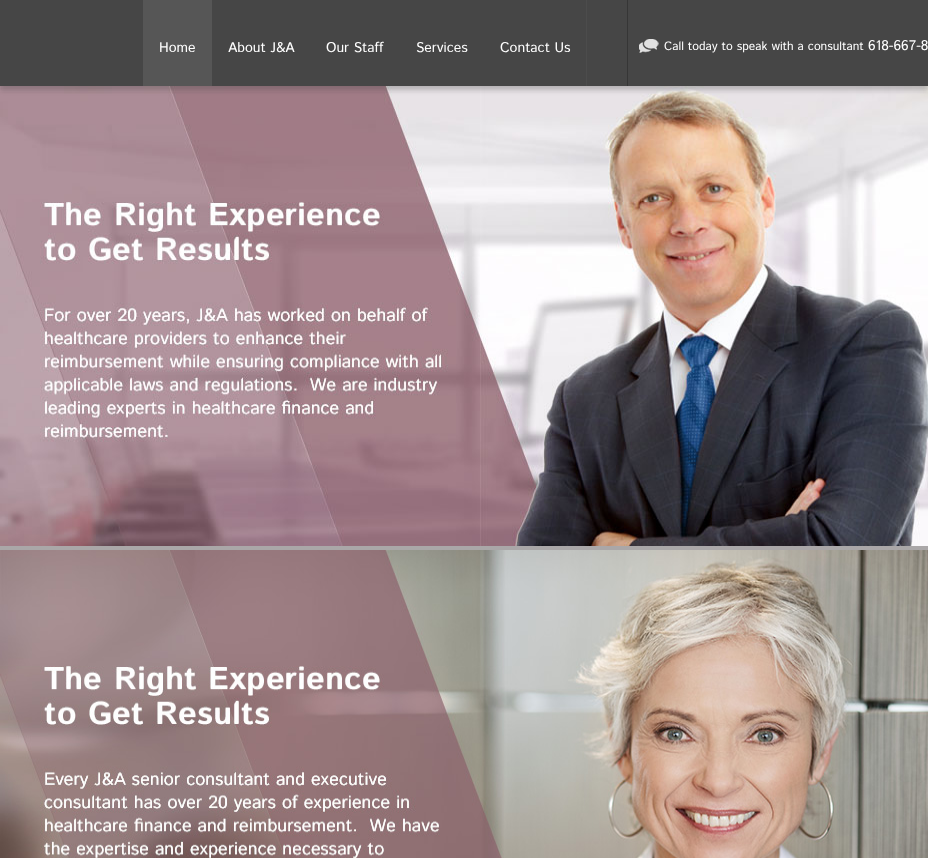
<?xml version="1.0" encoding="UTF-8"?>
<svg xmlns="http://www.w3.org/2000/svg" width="928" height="858">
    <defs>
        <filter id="blur1" x="-50%" y="-200%" width="200%" height="500%"><feGaussianBlur stdDeviation="2.5"/></filter>
    </defs>
    <rect width="100%" height="100%" fill="#AAA7A8"/>
    <image x="0" y="86" width="928" height="460" href="img_02.png"/>
    <rect x="0" y="4" width="928" height="86" fill="#323232" fill-opacity="0.29" filter="url(#blur1)"/>
    <rect x="0" y="0" width="928" height="86" fill="#464646"/>
    <rect x="586" y="0" width="1" height="86" fill="#4C4C4C"/>
    <rect x="143" y="0" width="69" height="86" fill="#565656"/>
    <text x="159" y="52" font-family="Istok Web" font-size="14" fill="#FFFFFF">Home</text>
    <text x="228" y="52" font-family="Istok Web" font-size="14" fill="#FFFFFF">About J&amp;A</text>
    <text x="326" y="52" font-family="Istok Web" font-size="14" fill="#FFFFFF">Our Staff</text>
    <text x="416" y="52" font-family="Istok Web" font-size="14" fill="#FFFFFF">Services</text>
    <text x="500" y="52" font-family="Istok Web" font-size="14" fill="#FFFFFF">Contact Us</text>
    <rect x="627" y="0" width="1" height="86" fill="#363636"/>
    <image x="639" y="39" width="20" height="14" href="img_01.png"/>
    <text x="664" y="50" font-family="Istok Web" font-size="12" fill="#FFFFFF">Call today to speak with a consultant</text>
    <text x="868" y="50" font-family="Istok Web" font-size="14" fill="#FFFFFF">618-667-8</text>
    <image x="0" y="550" width="928" height="308" href="img_03.png"/>
</svg>
